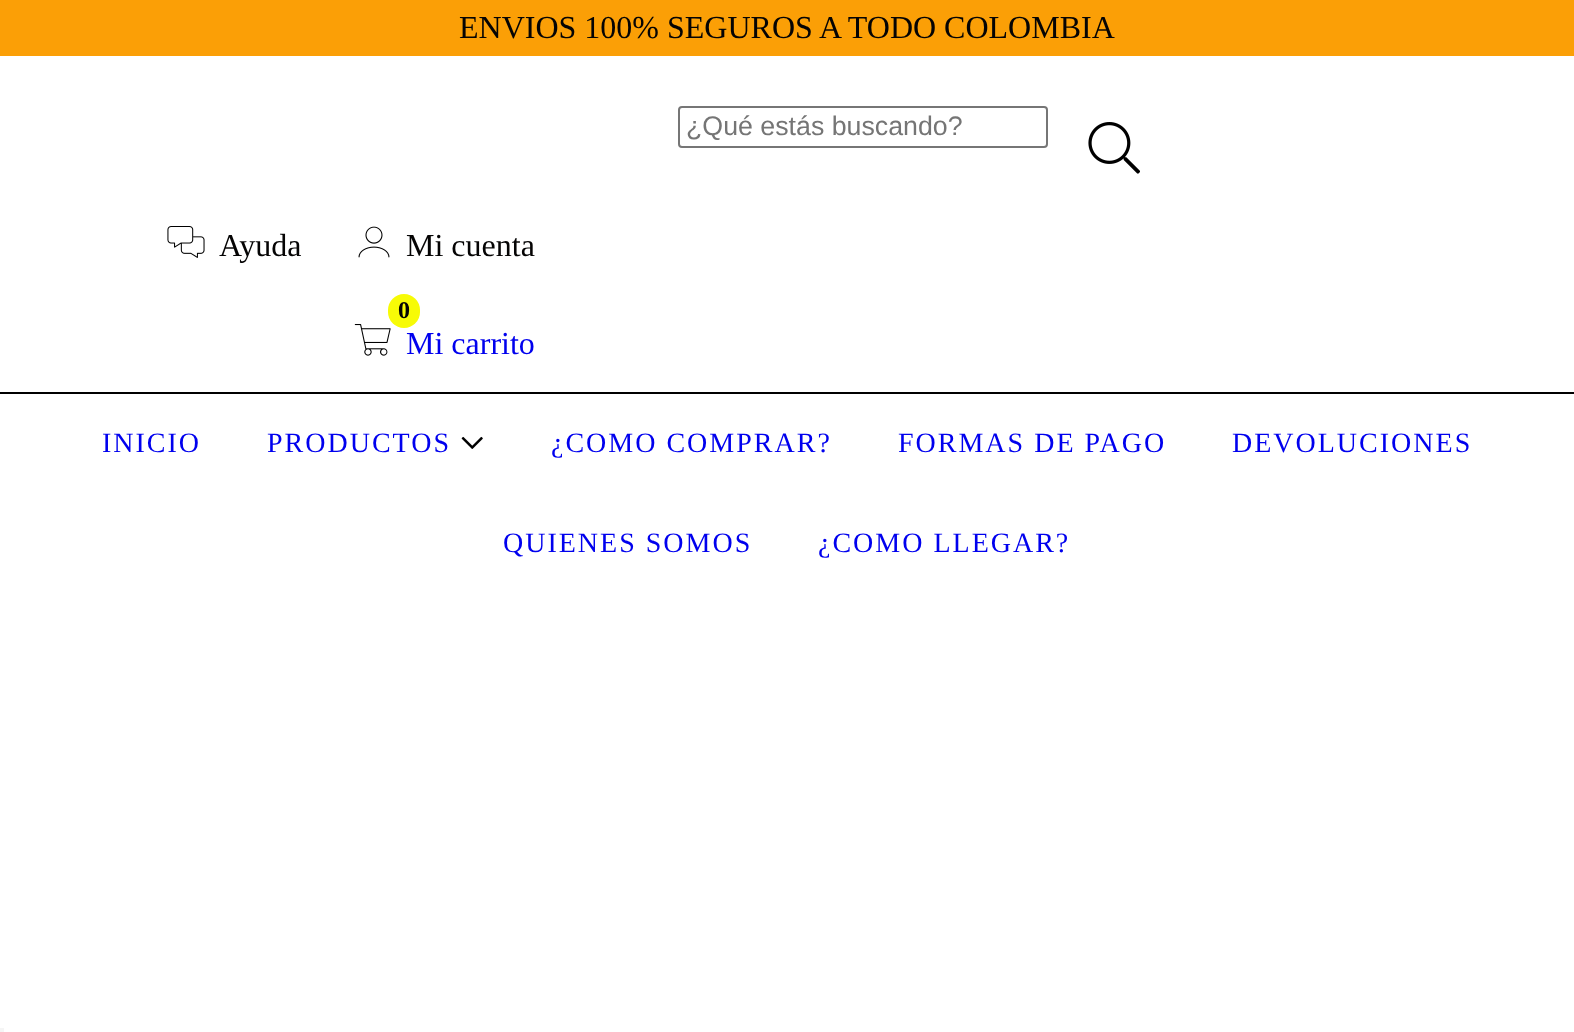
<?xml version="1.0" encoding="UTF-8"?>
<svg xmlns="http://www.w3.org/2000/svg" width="1574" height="1032">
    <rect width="100%" height="100%" fill="#FFFFFF"/>
    <rect x="0" y="0" width="1574" height="56" fill="#FB9F06"/>
    <text x="459" y="38" font-family="Liberation Serif" font-size="32" fill="#050404">ENVIOS 100% SEGUROS A TODO COLOMBIA</text>
    <rect x="679" y="107" width="368" height="40" rx="3" fill="none" stroke="#767676" stroke-width="2"/>
    <text x="686" y="135" font-family="Liberation Sans" font-size="26.75" fill="#757575">¿Qué estás buscando?</text>
    <image x="1088" y="122" width="52" height="52" href="img_01.png"/>
    <image x="167" y="226" width="38" height="32" href="img_02.png"/>
    <text x="219" y="256" font-family="Liberation Serif" font-size="32" fill="#050404">Ayuda</text>
    <image x="358" y="226" width="32" height="32" href="img_03.png"/>
    <text x="406" y="256" font-family="Liberation Serif" font-size="32" fill="#050404">Mi cuenta</text>
    <image x="354" y="324" width="37" height="32" href="img_04.png"/>
    <rect x="388" y="294" width="32" height="34" rx="16" fill="#F7FB06"/>
    <text x="398" y="318" font-family="Liberation Serif" font-size="24" font-weight="700" fill="#050404">0</text>
    <text x="406" y="354" font-family="Liberation Serif" font-size="32" fill="#0000EE">Mi carrito</text>
    <rect x="0" y="392" width="1574" height="2" fill="#000000"/>
    <text x="102" y="452" font-family="Liberation Serif" font-size="28" letter-spacing="2" fill="#0000EE">INICIO</text>
    <text x="267" y="452" font-family="Liberation Serif" font-size="28" letter-spacing="2" fill="#0000EE">PRODUCTOS</text>
    <image x="461" y="436" width="22" height="13" href="img_05.png"/>
    <text x="551" y="452" font-family="Liberation Serif" font-size="28" letter-spacing="2" fill="#0000EE">¿COMO COMPRAR?</text>
    <text x="898" y="452" font-family="Liberation Serif" font-size="28" letter-spacing="2" fill="#0000EE">FORMAS DE PAGO</text>
    <text x="1232" y="452" font-family="Liberation Serif" font-size="28" letter-spacing="2" fill="#0000EE">DEVOLUCIONES</text>
    <text x="503" y="552" font-family="Liberation Serif" font-size="28" letter-spacing="2" fill="#0000EE">QUIENES SOMOS</text>
    <text x="818" y="552" font-family="Liberation Serif" font-size="28" letter-spacing="2" fill="#0000EE">¿COMO LLEGAR?</text>
    <rect x="0" y="1028" width="4" height="4" fill="#F5F5F5"/>
</svg>
